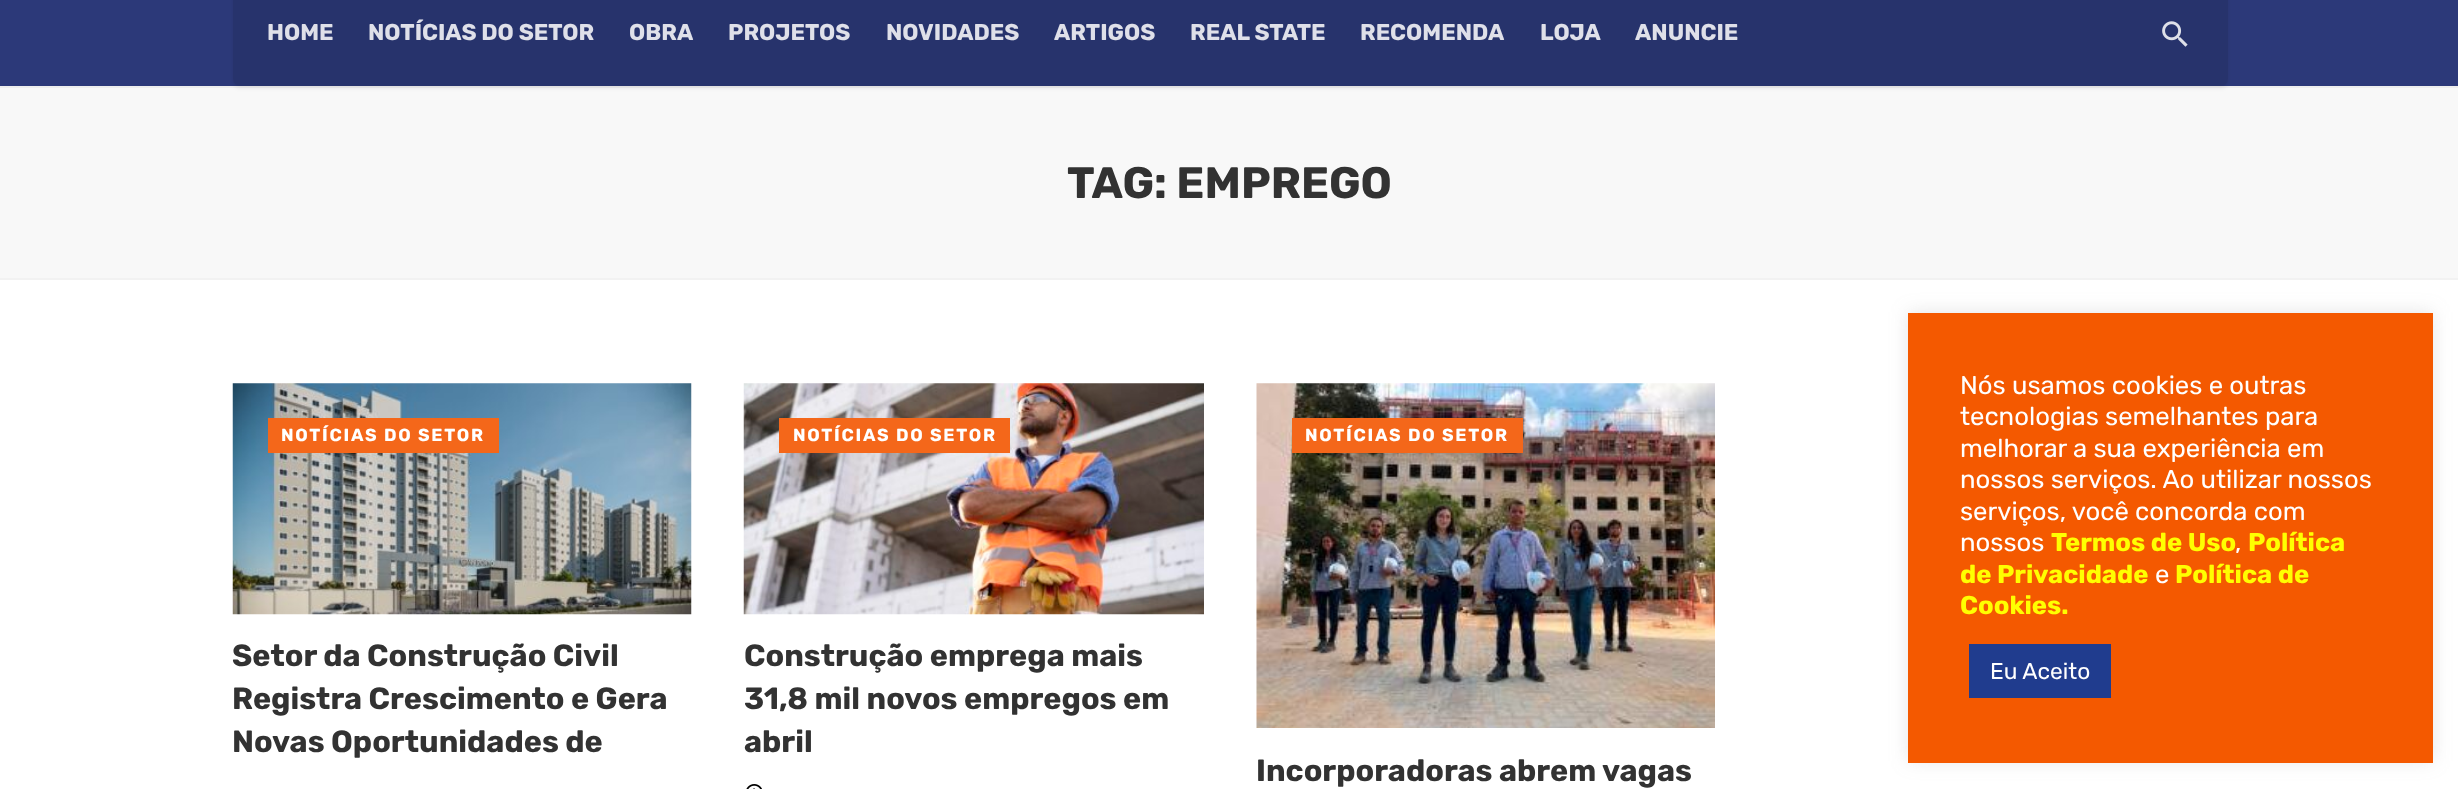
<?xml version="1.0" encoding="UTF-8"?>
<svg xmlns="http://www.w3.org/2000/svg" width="2458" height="789">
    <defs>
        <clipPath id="clip1"><path d="M 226 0 H 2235 V 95 H 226 Z M 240 -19 H 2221 C 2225 -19 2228 -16 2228 -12 V 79 C 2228 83 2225 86 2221 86 H 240 C 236 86 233 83 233 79 V -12 C 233 -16 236 -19 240 -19 Z" clip-rule="evenodd"/></clipPath>
        <filter id="blur1" x="-50%" y="-200%" width="200%" height="500%"><feGaussianBlur stdDeviation="2"/></filter>
        <filter id="blur2" x="-50%" y="-200%" width="200%" height="500%"><feGaussianBlur stdDeviation="9"/></filter>
    </defs>
    <rect width="100%" height="100%" fill="#FFFFFF"/>
    <rect x="-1" y="85" width="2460" height="194" fill="none" stroke="#F2F2F2" stroke-width="2"/>
    <path d="M 0 86 V 88 H 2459 V -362 V 86 Z" fill="#EEEEEE"/>
    <rect x="0" y="0" width="2458" height="86" fill="#2C3979"/>
    <rect x="0" y="88" width="2458" height="190" fill="#F8F8F8"/>
    <g clip-path="url(#clip1)">
        <rect x="233" y="-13" width="1995" height="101" rx="7" fill="#000000" fill-opacity="0.08" filter="url(#blur1)"/>
    </g>
    <rect x="233" y="-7" width="1995" height="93" rx="7" fill="#000000" fill-opacity="0.1"/>
    <text x="267" y="40" font-family="Rubik" font-size="22.75" font-weight="700" fill="#DFE0E9">HOME</text>
    <text x="368" y="40" font-family="Rubik" font-size="22.75" font-weight="700" fill="#DFE0E9">NOTÍCIAS DO SETOR</text>
    <text x="629" y="40" font-family="Rubik" font-size="22.75" font-weight="700" fill="#DFE0E9">OBRA</text>
    <text x="728" y="40" font-family="Rubik" font-size="22.75" font-weight="700" fill="#DFE0E9">PROJETOS</text>
    <text x="886" y="40" font-family="Rubik" font-size="22.75" font-weight="700" fill="#DFE0E9">NOVIDADES</text>
    <text x="1054" y="40" font-family="Rubik" font-size="22.75" font-weight="700" fill="#DFE0E9">ARTIGOS</text>
    <text x="1190" y="40" font-family="Rubik" font-size="22.75" font-weight="700" fill="#DFE0E9">REAL STATE</text>
    <text x="1360" y="40" font-family="Rubik" font-size="22.75" font-weight="700" fill="#DFE0E9">RECOMENDA</text>
    <text x="1540" y="40" font-family="Rubik" font-size="22.75" font-weight="700" fill="#DFE0E9">LOJA</text>
    <text x="1635" y="40" font-family="Rubik" font-size="22.75" font-weight="700" fill="#DFE0E9">ANUNCIE</text>
    <image x="2162" y="21" width="26" height="26" href="img_01.png"/>
    <text x="1067" y="198" font-family="Rubik" font-size="44" font-weight="700" fill="#323232">TAG: EMPREGO</text>
    <image x="232" y="383" width="460" height="232" href="img_02.png"/>
    <rect x="268" y="418" width="231" height="35" fill="#F4671A"/>
    <text x="281" y="441" font-family="Rubik" font-size="17.5" font-weight="700" letter-spacing="1.75" fill="#FFFFFF">NOTÍCIAS DO SETOR</text>
    <text font-family="Rubik" font-size="30.6" font-weight="700" fill="#323232">
        <tspan x="232" y="666">Setor da Construção Civil</tspan>
        <tspan x="232" y="709">Registra Crescimento e Gera</tspan>
        <tspan x="232" y="752">Novas Oportunidades de</tspan>
    </text>
    <image x="743" y="383" width="461" height="232" href="img_03.png"/>
    <rect x="779" y="418" width="231" height="35" fill="#F4671A"/>
    <text x="793" y="441" font-family="Rubik" font-size="17.5" font-weight="700" letter-spacing="1.75" fill="#FFFFFF">NOTÍCIAS DO SETOR</text>
    <text font-family="Rubik" font-size="30.6" font-weight="700" fill="#323232">
        <tspan x="744" y="666">Construção emprega mais</tspan>
        <tspan x="744" y="709">31,8 mil novos empregos em</tspan>
        <tspan x="744" y="752">abril</tspan>
    </text>
    <image x="746" y="784" width="16" height="5" href="img_04.png"/>
    <image x="1256" y="383" width="459" height="345" href="img_05.png"/>
    <rect x="1292" y="418" width="231" height="35" fill="#F4671A"/>
    <text x="1305" y="441" font-family="Rubik" font-size="17.5" font-weight="700" letter-spacing="1.75" fill="#FFFFFF">NOTÍCIAS DO SETOR</text>
    <text x="1256" y="781" font-family="Rubik" font-size="30.6" font-weight="700" fill="#323232">Incorporadoras abrem vagas</text>
    <rect x="1908" y="312" width="525" height="449" fill="#ACABAB" fill-opacity="0.3" filter="url(#blur2)"/>
    <rect x="1908" y="313" width="525" height="450" fill="#F45900"/>
    <text font-family="Rubik" font-size="25.7" fill="#FFFFFF">
        <tspan x="1960" y="394">Nós usamos cookies e outras</tspan>
        <tspan x="1960" y="425">tecnologias semelhantes para</tspan>
        <tspan x="1960" y="457">melhorar a sua experiência em</tspan>
        <tspan x="1960" y="488">nossos serviços. Ao utilizar nossos</tspan>
        <tspan x="1960" y="520">serviços, você concorda com</tspan>
        <tspan x="1960" y="551">nossos</tspan>
    </text>
    <text x="2051" y="551" font-family="Rubik" font-size="25.7" font-weight="700" fill="#FFFF00">Termos de Uso</text>
    <text x="2235" y="551" font-family="Rubik" font-size="25.7" fill="#FFFFFF">,</text>
    <text x="2248" y="551" font-family="Rubik" font-size="25.7" font-weight="700" fill="#FFFF00">Política</text>
    <text x="1960" y="583" font-family="Rubik" font-size="25.7" font-weight="700" fill="#FFFF00">de Privacidade</text>
    <text x="2155" y="583" font-family="Rubik" font-size="25.7" fill="#FFFFFF">e</text>
    <text x="2175" y="583" font-family="Rubik" font-size="25.7" font-weight="700" fill="#FFFF00">Política de</text>
    <text x="1960" y="614" font-family="Rubik" font-size="25.7" font-weight="700" fill="#FFFF00">Cookies.</text>
    <rect x="1969" y="644" width="142" height="54" fill="#203C8E"/>
    <text x="1990" y="679" font-family="Rubik" font-size="22.75" fill="#FFFFFF">Eu Aceito</text>
</svg>
